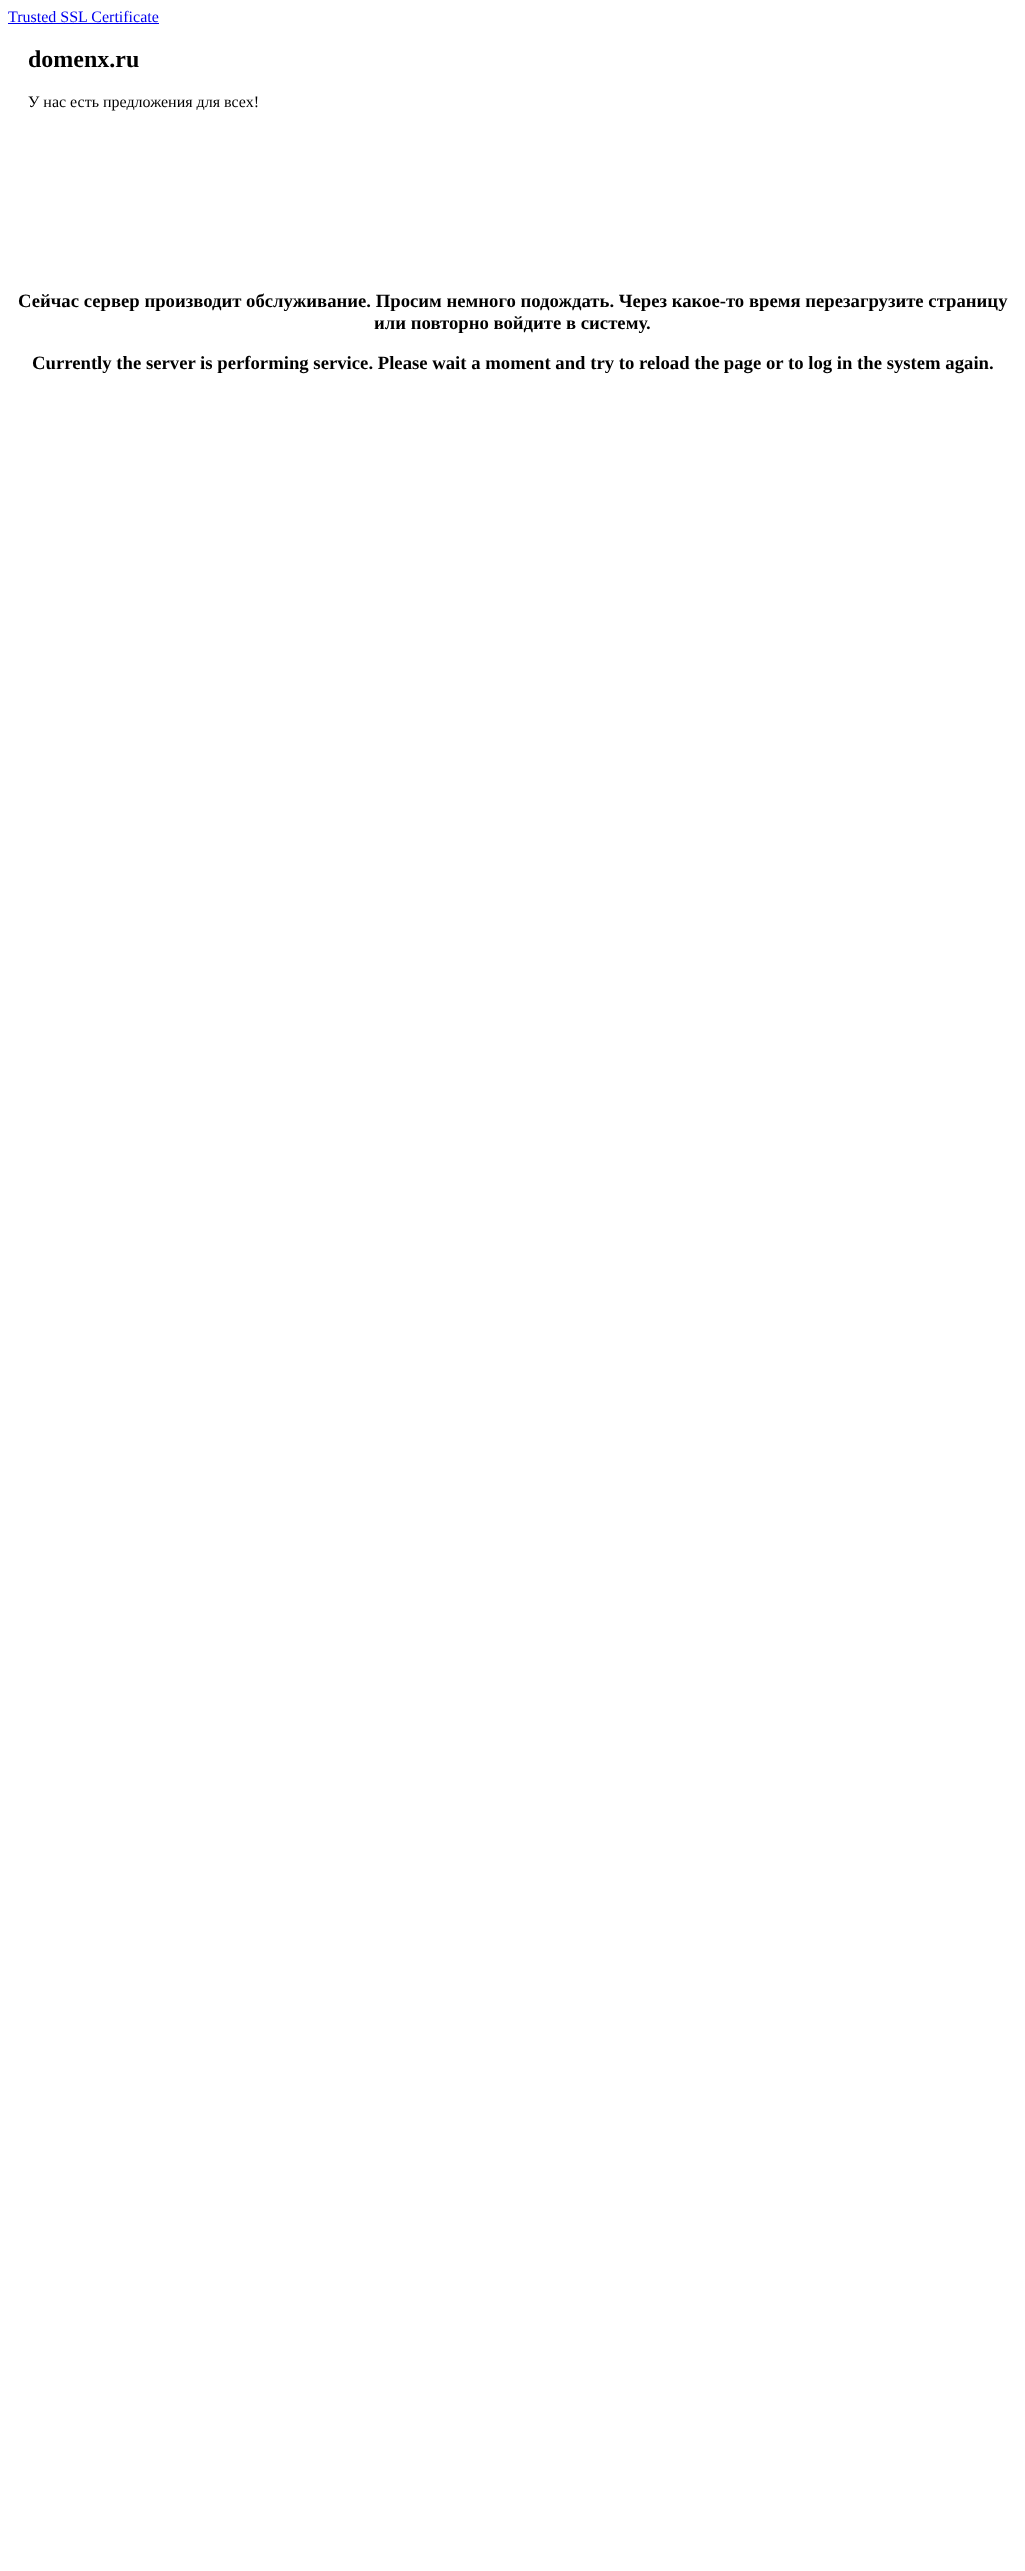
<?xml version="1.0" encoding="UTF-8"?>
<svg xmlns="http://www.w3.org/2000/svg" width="1025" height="2571">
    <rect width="100%" height="100%" fill="#FFFFFF"/>
    <text x="8" y="22" font-family="Liberation Serif" font-size="16" fill="#0000EE">Trusted SSL Certificate</text>
    <rect x="8" y="23" width="151" height="1" fill="#0000EE"/>
    <text x="28" y="67" font-family="Liberation Serif" font-size="24" font-weight="700" fill="#000000">domenx.ru</text>
    <text x="28" y="107" font-family="Liberation Serif" font-size="16" fill="#000000">У нас есть предложения для всех!</text>
    <text x="18" y="307" font-family="Liberation Serif" font-size="18.72" font-weight="700" fill="#000000">Сейчас сервер производит обслуживание. Просим немного подождать. Через какое-то время перезагрузите страницу</text>
    <text x="374" y="329" font-family="Liberation Serif" font-size="18.72" font-weight="700" fill="#000000">или повторно войдите в систему.</text>
    <text x="32" y="369" font-family="Liberation Serif" font-size="18.72" font-weight="700" fill="#000000">Currently the server is performing service. Please wait a moment and try to reload the page or to log in the system again.</text>
</svg>
